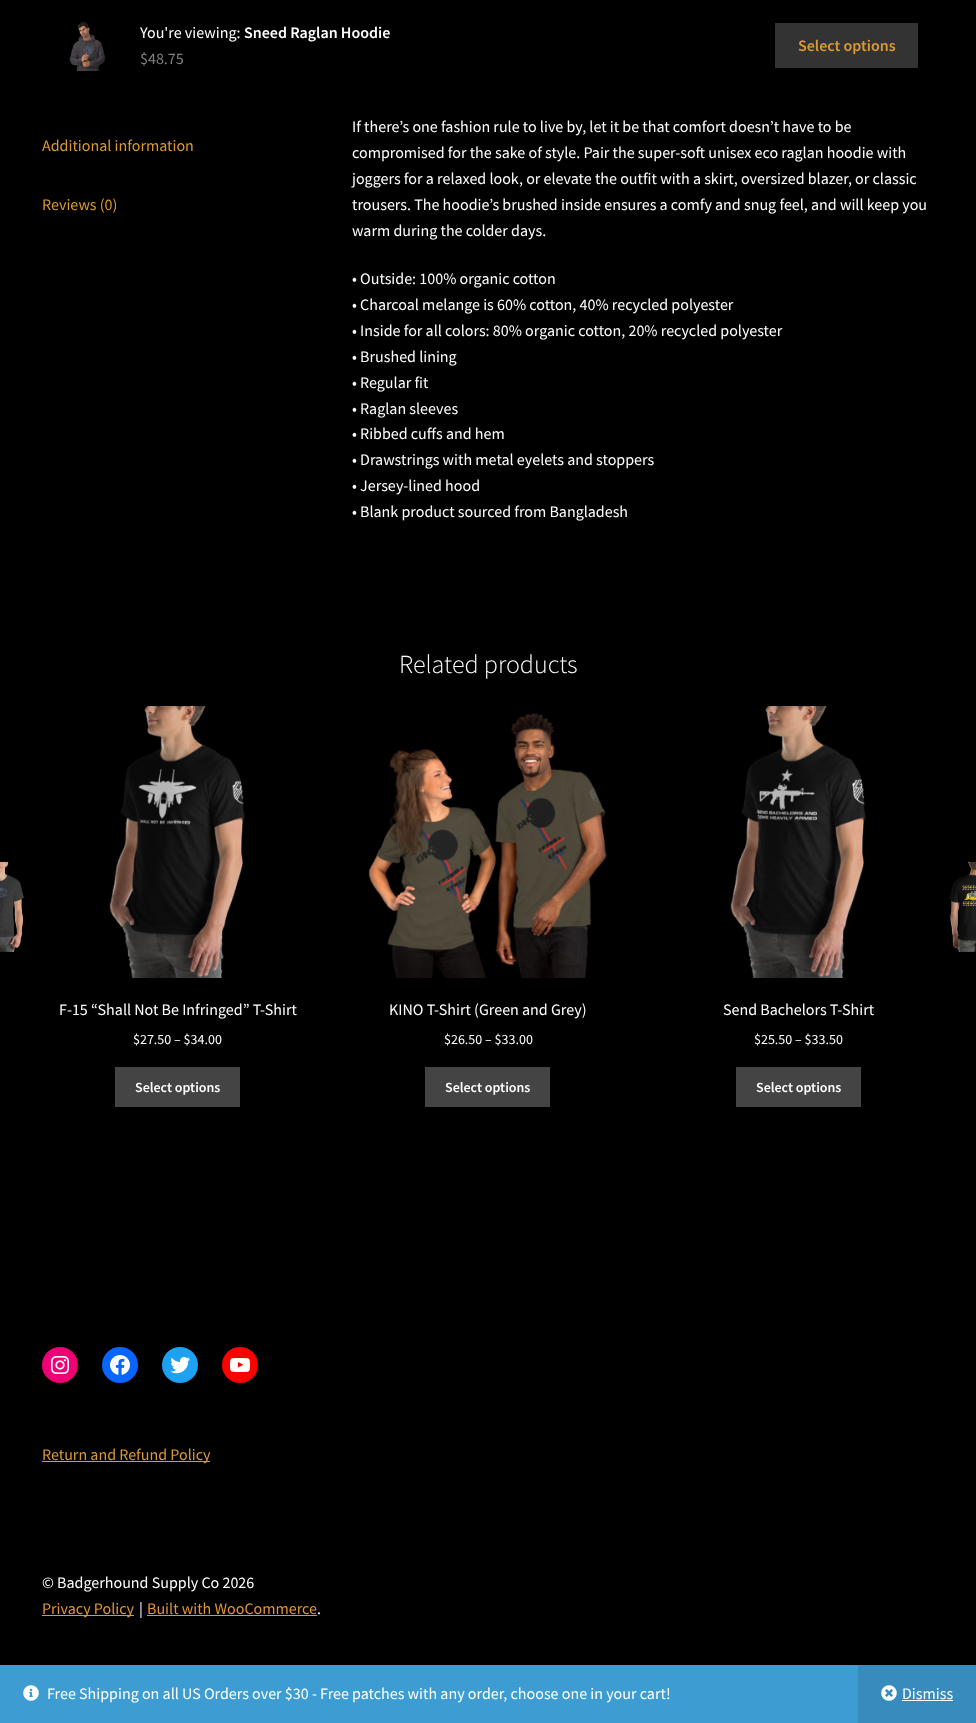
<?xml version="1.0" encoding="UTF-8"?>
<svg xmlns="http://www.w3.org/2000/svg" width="976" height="1723">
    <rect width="100%" height="100%" fill="#000000"/>
    <image x="69" y="22" width="36" height="49" href="img_01.png"/>
    <text x="140" y="38" font-family="Source Sans Pro" font-size="16" fill="#FFFFFF">You're viewing:</text>
    <text x="244" y="38" font-family="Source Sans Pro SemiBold" font-size="16" font-weight="600" fill="#FFFFFF">Sneed Raglan Hoodie</text>
    <text x="140" y="64" font-family="Source Sans Pro" font-size="16" fill="#808080">$48.75</text>
    <rect x="775" y="23" width="143" height="45" fill="#333333"/>
    <text x="798" y="51" font-family="Source Sans Pro SemiBold" font-size="16" font-weight="600" fill="#DD9933">Select options</text>
    <text x="42" y="151" font-family="Source Sans Pro" font-size="16" fill="#DD9933">Additional information</text>
    <text x="42" y="210" font-family="Source Sans Pro" font-size="16" fill="#DD9933">Reviews (0)</text>
    <text font-family="Source Sans Pro" font-size="16" fill="#FFFFFF">
        <tspan x="352" y="132">If there’s one fashion rule to live by, let it be that comfort doesn’t have to be</tspan>
        <tspan x="352" y="158">compromised for the sake of style. Pair the super-soft unisex eco raglan hoodie with</tspan>
        <tspan x="352" y="184">joggers for a relaxed look, or elevate the outfit with a skirt, oversized blazer, or classic</tspan>
        <tspan x="352" y="210">trousers. The hoodie’s brushed inside ensures a comfy and snug feel, and will keep you</tspan>
        <tspan x="352" y="236">warm during the colder days.</tspan>
    </text>
    <text font-family="Source Sans Pro" font-size="16" fill="#FFFFFF">
        <tspan x="352" y="284">• Outside: 100% organic cotton</tspan>
        <tspan x="352" y="310">• Charcoal melange is 60% cotton, 40% recycled polyester</tspan>
        <tspan x="352" y="336">• Inside for all colors: 80% organic cotton, 20% recycled polyester</tspan>
        <tspan x="352" y="362">• Brushed lining</tspan>
        <tspan x="352" y="388">• Regular fit</tspan>
        <tspan x="352" y="414">• Raglan sleeves</tspan>
        <tspan x="352" y="439">• Ribbed cuffs and hem</tspan>
        <tspan x="352" y="465">• Drawstrings with metal eyelets and stoppers</tspan>
        <tspan x="352" y="491">• Jersey-lined hood</tspan>
        <tspan x="352" y="517">• Blank product sourced from Bangladesh</tspan>
    </text>
    <text x="399" y="673" font-family="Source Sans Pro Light" font-size="26" font-weight="300" fill="#FFFFFF">Related products</text>
    <image x="109" y="706" width="136" height="272" href="img_02.png"/>
    <text x="59" y="1015" font-family="Source Sans Pro" font-size="16" fill="#FFFFFF">F-15 “Shall Not Be Infringed” T-Shirt</text>
    <text x="133" y="1044" font-family="Source Sans Pro" font-size="14" fill="#FFFFFF">$27.50 – $34.00</text>
    <rect x="115" y="1067" width="125" height="40" fill="#444444"/>
    <text x="135" y="1092" font-family="Source Sans Pro SemiBold" font-size="14" font-weight="600" fill="#FFFFFF">Select options</text>
    <image x="368" y="713" width="239" height="265" href="img_03.png"/>
    <text x="389" y="1015" font-family="Source Sans Pro" font-size="16" fill="#FFFFFF">KINO T-Shirt (Green and Grey)</text>
    <text x="444" y="1044" font-family="Source Sans Pro" font-size="14" fill="#FFFFFF">$26.50 – $33.00</text>
    <rect x="425" y="1067" width="125" height="40" fill="#444444"/>
    <text x="445" y="1092" font-family="Source Sans Pro SemiBold" font-size="14" font-weight="600" fill="#FFFFFF">Select options</text>
    <image x="730" y="706" width="136" height="272" href="img_04.png"/>
    <text x="723" y="1015" font-family="Source Sans Pro" font-size="16" fill="#FFFFFF">Send Bachelors T-Shirt</text>
    <text x="754" y="1044" font-family="Source Sans Pro" font-size="14" fill="#FFFFFF">$25.50 – $33.50</text>
    <rect x="736" y="1067" width="125" height="40" fill="#444444"/>
    <text x="756" y="1092" font-family="Source Sans Pro SemiBold" font-size="14" font-weight="600" fill="#FFFFFF">Select options</text>
    <image x="0" y="861" width="24" height="91" href="img_05.png"/>
    <image x="949" y="861" width="27" height="91" href="img_06.png"/>
    <circle cx="60" cy="1365" r="18" fill="#F00075"/>
    <image x="51" y="1356" width="18" height="18" href="img_07.png"/>
    <circle cx="120" cy="1365" r="18" fill="#0866FF"/>
    <image x="110" y="1355" width="20" height="20" href="img_08.png"/>
    <circle cx="180" cy="1365" r="18" fill="#1DA1F2"/>
    <image x="170" y="1357" width="20" height="17" href="img_09.png"/>
    <circle cx="240" cy="1365" r="18" fill="#FF0000"/>
    <image x="230" y="1358" width="20" height="14" href="img_10.png"/>
    <rect x="42" y="1461" width="168" height="1" fill="#DD9933"/>
    <text x="42" y="1460" font-family="Source Sans Pro" font-size="16" fill="#DD9933">Return and Refund Policy</text>
    <text x="42" y="1588" font-family="Source Sans Pro" font-size="16" fill="#FFFFFF">© Badgerhound Supply Co 2026</text>
    <rect x="42" y="1615" width="92" height="1" fill="#DD9933"/>
    <text x="42" y="1614" font-family="Source Sans Pro" font-size="16" fill="#DD9933">Privacy Policy</text>
    <text x="139" y="1614" font-family="Source Sans Pro" font-size="16" fill="#FFFFFF">|</text>
    <text x="147" y="1614" font-family="Source Sans Pro" font-size="16" fill="#DD9933">Built with WooCommerce</text>
    <rect x="147" y="1615" width="170" height="1" fill="#DD9933"/>
    <text x="317" y="1614" font-family="Source Sans Pro" font-size="16" fill="#FFFFFF">.</text>
    <rect x="0" y="1665" width="858" height="58" fill="#3D9CD2"/>
    <image x="23" y="1685" width="16" height="16" href="img_11.png"/>
    <text x="47" y="1699" font-family="Source Sans Pro" font-size="16" fill="#FFFFFF">Free Shipping on all US Orders over $30 - Free patches with any order, choose one in your cart!</text>
    <rect x="858" y="1665" width="118" height="58" fill="#378CBD"/>
    <image x="881" y="1685" width="16" height="16" href="img_12.png"/>
    <text x="902" y="1699" font-family="Source Sans Pro" font-size="16" fill="#FFFFFF">Dismiss</text>
    <rect x="902" y="1700" width="51" height="1" fill="#FFFFFF"/>
</svg>
